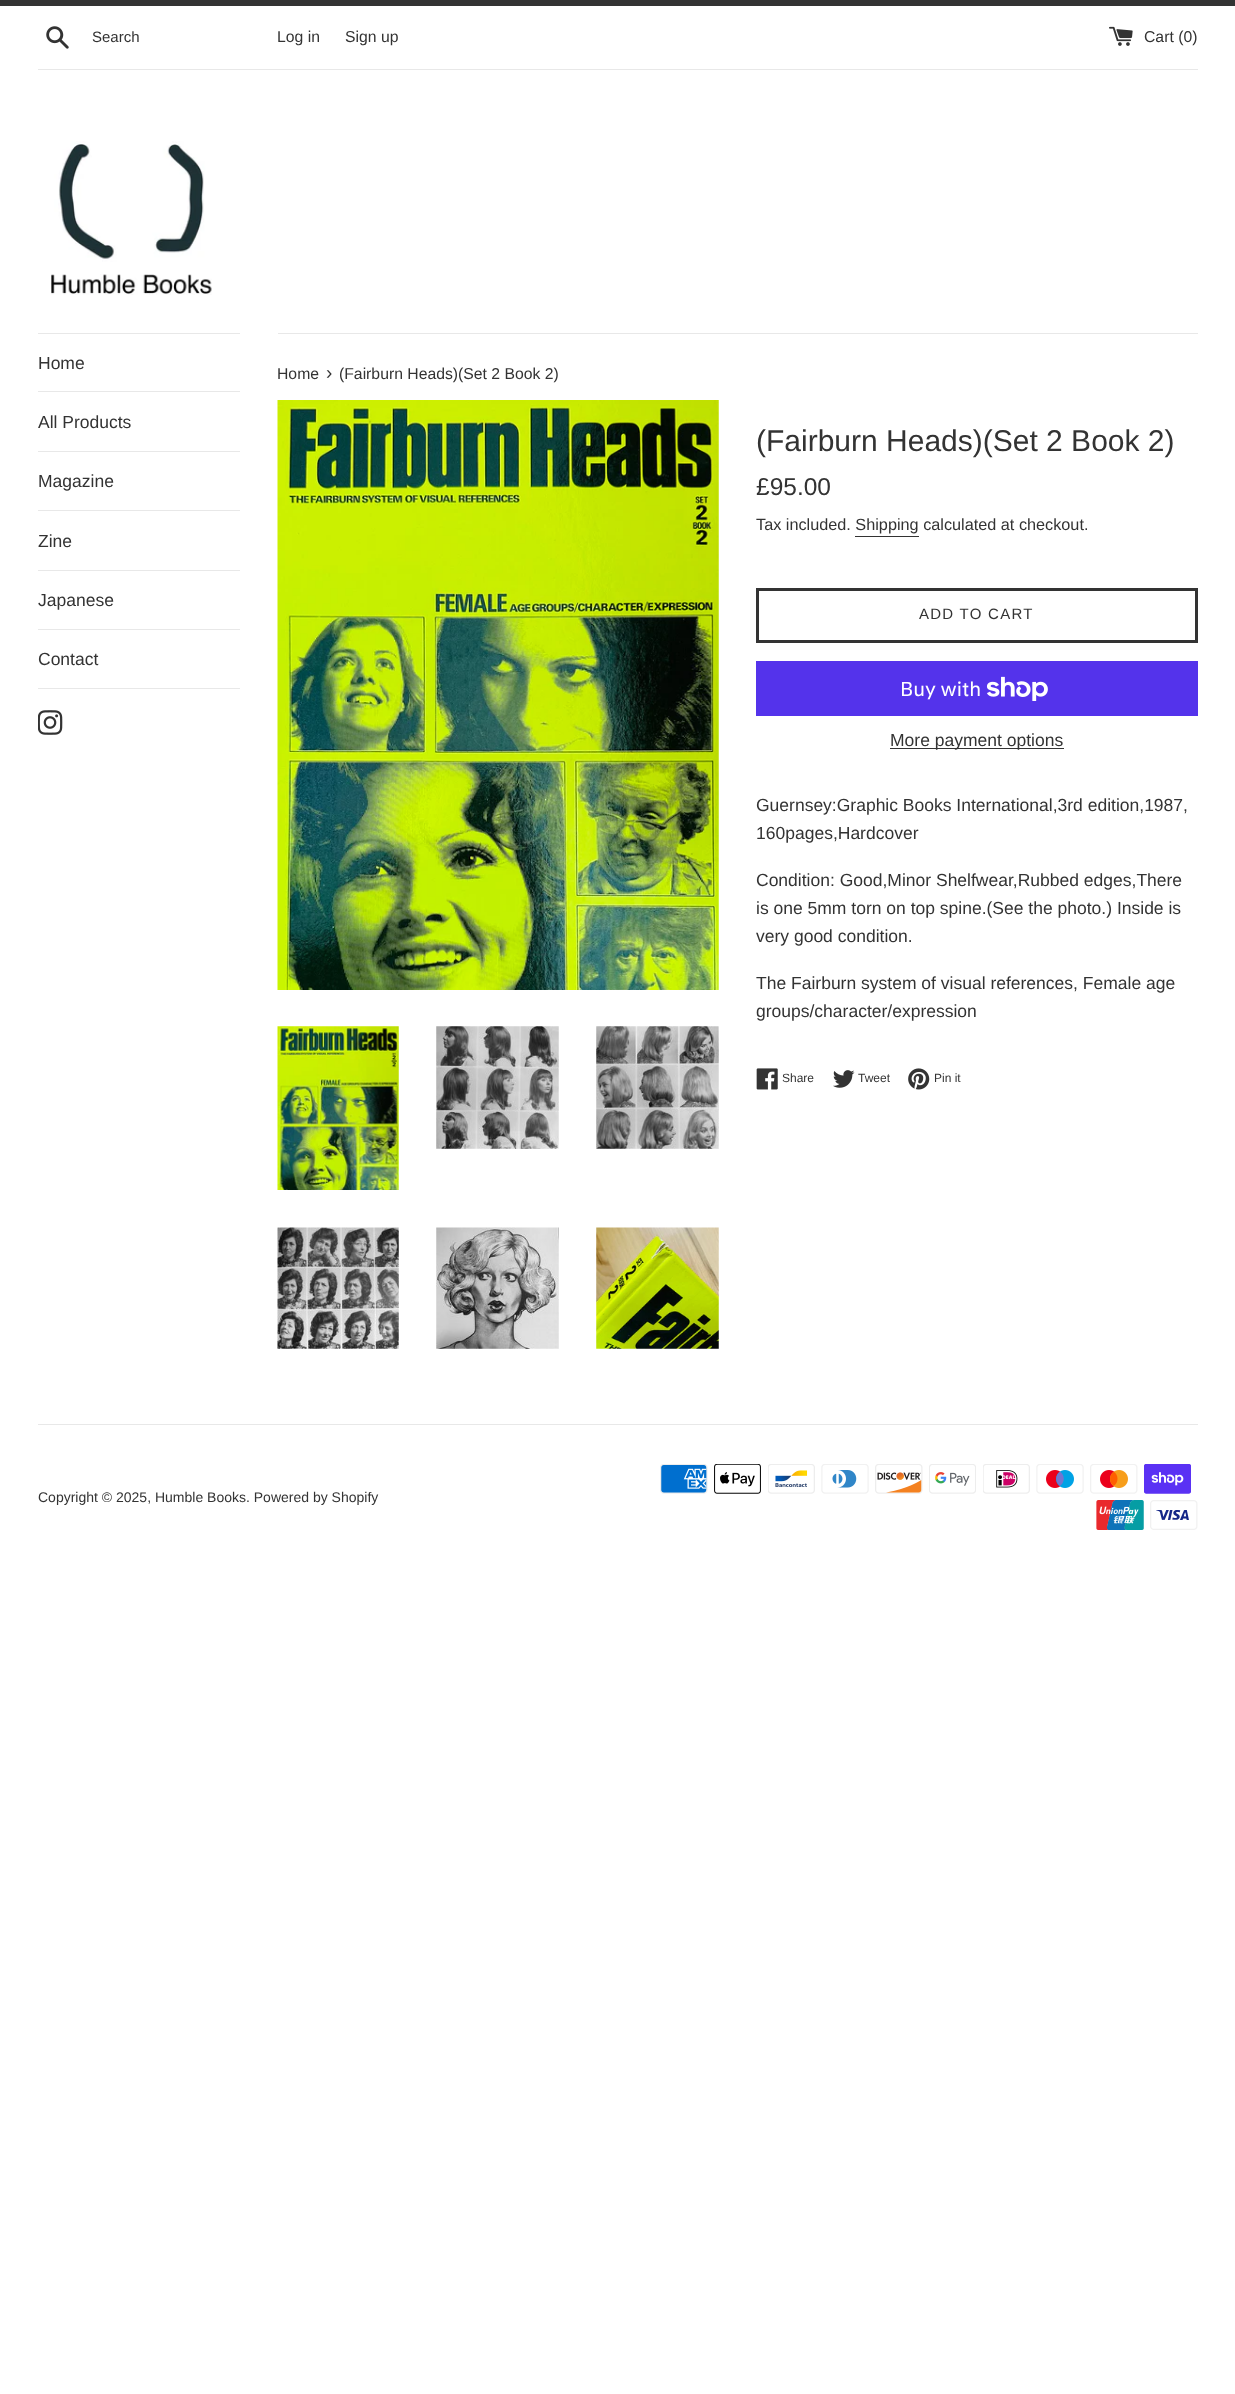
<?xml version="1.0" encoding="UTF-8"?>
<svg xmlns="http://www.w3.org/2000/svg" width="1235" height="2394">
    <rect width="100%" height="100%" fill="#FFFFFF"/>
    <rect x="0" y="0" width="1235" height="6" fill="#333333"/>
    <image x="46" y="26" width="23" height="23" href="img_01.png"/>
    <text x="92" y="42" font-family="Liberation Sans" font-size="15" fill="#333333">Search</text>
    <text x="277" y="42" font-family="Liberation Sans" font-size="15.75" fill="#333333">Log in</text>
    <text x="345" y="42" font-family="Liberation Sans" font-size="15.75" fill="#333333">Sign up</text>
    <image x="1109" y="26" width="24" height="20" href="img_02.png"/>
    <text x="1144" y="42" font-family="Liberation Sans" font-size="15.75" fill="#333333">Cart (0)</text>
    <rect x="38" y="69" width="1160" height="1" fill="#E8E8E8"/>
    <image x="51" y="141" width="161" height="154" href="img_03.png"/>
    <rect x="38" y="333" width="202" height="1" fill="#E8E8E8"/>
    <rect x="38" y="391" width="202" height="1" fill="#E8E8E8"/>
    <text x="38" y="369" font-family="Liberation Sans" font-size="17.5" fill="#333333">Home</text>
    <rect x="38" y="451" width="202" height="1" fill="#E8E8E8"/>
    <text x="38" y="428" font-family="Liberation Sans" font-size="17.5" fill="#333333">All Products</text>
    <rect x="38" y="510" width="202" height="1" fill="#E8E8E8"/>
    <text x="38" y="487" font-family="Liberation Sans" font-size="17.5" fill="#333333">Magazine</text>
    <rect x="38" y="570" width="202" height="1" fill="#E8E8E8"/>
    <text x="38" y="547" font-family="Liberation Sans" font-size="17.5" fill="#333333">Zine</text>
    <rect x="38" y="629" width="202" height="1" fill="#E8E8E8"/>
    <text x="38" y="606" font-family="Liberation Sans" font-size="17.5" fill="#333333">Japanese</text>
    <rect x="38" y="688" width="202" height="1" fill="#E8E8E8"/>
    <text x="38" y="665" font-family="Liberation Sans" font-size="17.5" fill="#333333">Contact</text>
    <image x="38" y="710" width="25" height="25" href="img_04.png"/>
    <rect x="278" y="333" width="920" height="1" fill="#E8E8E8"/>
    <text x="277" y="379" font-family="Liberation Sans" font-size="15.75" fill="#333333">Home</text>
    <text x="326" y="379" font-family="Liberation Sans" font-size="19" fill="#333333">›</text>
    <text x="339" y="379" font-family="Liberation Sans" font-size="15.75" fill="#333333">(Fairburn Heads)(Set 2 Book 2)</text>
    <image x="277" y="400" width="442" height="590" href="img_05.png"/>
    <image x="277" y="1026" width="122" height="164" href="img_06.png"/>
    <image x="436" y="1026" width="123" height="123" href="img_07.png"/>
    <image x="596" y="1026" width="123" height="123" href="img_08.png"/>
    <image x="277" y="1227" width="122" height="122" href="img_09.png"/>
    <image x="436" y="1227" width="123" height="122" href="img_10.png"/>
    <image x="596" y="1227" width="123" height="122" href="img_11.png"/>
    <text x="756" y="451" font-family="Liberation Sans" font-size="30" fill="#333333">(Fairburn Heads)(Set 2 Book 2)</text>
    <text x="756" y="495" font-family="Liberation Sans" font-size="24.5" fill="#333333">£95.00</text>
    <text x="756" y="530" font-family="Liberation Sans" font-size="16.25" fill="#333333">Tax included. Shipping calculated at checkout.</text>
    <rect x="855" y="536" width="64" height="1" fill="#333333"/>
    <rect x="757.5" y="589.5" width="439" height="52" fill="none" stroke="#333333" stroke-width="3"/>
    <text x="919" y="619" font-family="Liberation Sans" font-size="15" letter-spacing="1.25" fill="#333333">ADD TO CART</text>
    <rect x="756" y="661" width="442" height="55" fill="#5433EB"/>
    <text x="900" y="696" font-family="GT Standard" font-size="20" fill="#FFFFFF">Buy with</text>
    <image x="986" y="676" width="62" height="25" href="img_12.png"/>
    <rect x="890" y="748" width="174" height="1" fill="#333333"/>
    <text x="890" y="746" font-family="Liberation Sans" font-size="17.5" fill="#333333">More payment options</text>
    <text font-family="Liberation Sans" font-size="17.5" fill="#333333">
        <tspan x="756" y="811">Guernsey:Graphic Books International,3rd edition,1987,</tspan>
        <tspan x="756" y="839">160pages,Hardcover</tspan>
    </text>
    <text font-family="Liberation Sans" font-size="17.5" fill="#333333">
        <tspan x="756" y="886">Condition: Good,Minor Shelfwear,Rubbed edges,There</tspan>
        <tspan x="756" y="914">is one 5mm torn on top spine.(See the photo.) Inside is</tspan>
        <tspan x="756" y="942">very good condition.</tspan>
    </text>
    <text font-family="Liberation Sans" font-size="17.5" fill="#333333">
        <tspan x="756" y="989">The Fairburn system of visual references, Female age</tspan>
        <tspan x="756" y="1017">groups/character/expression</tspan>
    </text>
    <image x="756" y="1068" width="22" height="22" href="img_13.png"/>
    <text x="782" y="1082" font-family="Liberation Sans" font-size="12" fill="#333333">Share</text>
    <image x="833" y="1070" width="22" height="18" href="img_14.png"/>
    <text x="858" y="1082" font-family="Liberation Sans" font-size="12" fill="#333333">Tweet</text>
    <image x="908" y="1068" width="22" height="22" href="img_15.png"/>
    <text x="934" y="1082" font-family="Liberation Sans" font-size="12" fill="#333333">Pin it</text>
    <rect x="38" y="1424" width="1160" height="1" fill="#E8E8E8"/>
    <text x="38" y="1502" font-family="Liberation Sans" font-size="14" fill="#333333">Copyright © 2025, Humble Books. Powered by Shopify</text>
    <image x="660" y="1464" width="48" height="30" href="img_16.png"/>
    <image x="714" y="1464" width="47" height="30" href="img_17.png"/>
    <image x="768" y="1464" width="47" height="30" href="img_18.png"/>
    <image x="821" y="1464" width="48" height="30" href="img_19.png"/>
    <image x="875" y="1464" width="48" height="30" href="img_20.png"/>
    <image x="929" y="1464" width="47" height="30" href="img_21.png"/>
    <image x="983" y="1464" width="47" height="30" href="img_22.png"/>
    <image x="1036" y="1464" width="48" height="30" href="img_23.png"/>
    <image x="1090" y="1464" width="48" height="30" href="img_24.png"/>
    <image x="1144" y="1464" width="47" height="30" href="img_25.png"/>
    <image x="1096" y="1500" width="48" height="30" href="img_26.png"/>
    <image x="1150" y="1500" width="48" height="30" href="img_27.png"/>
</svg>
